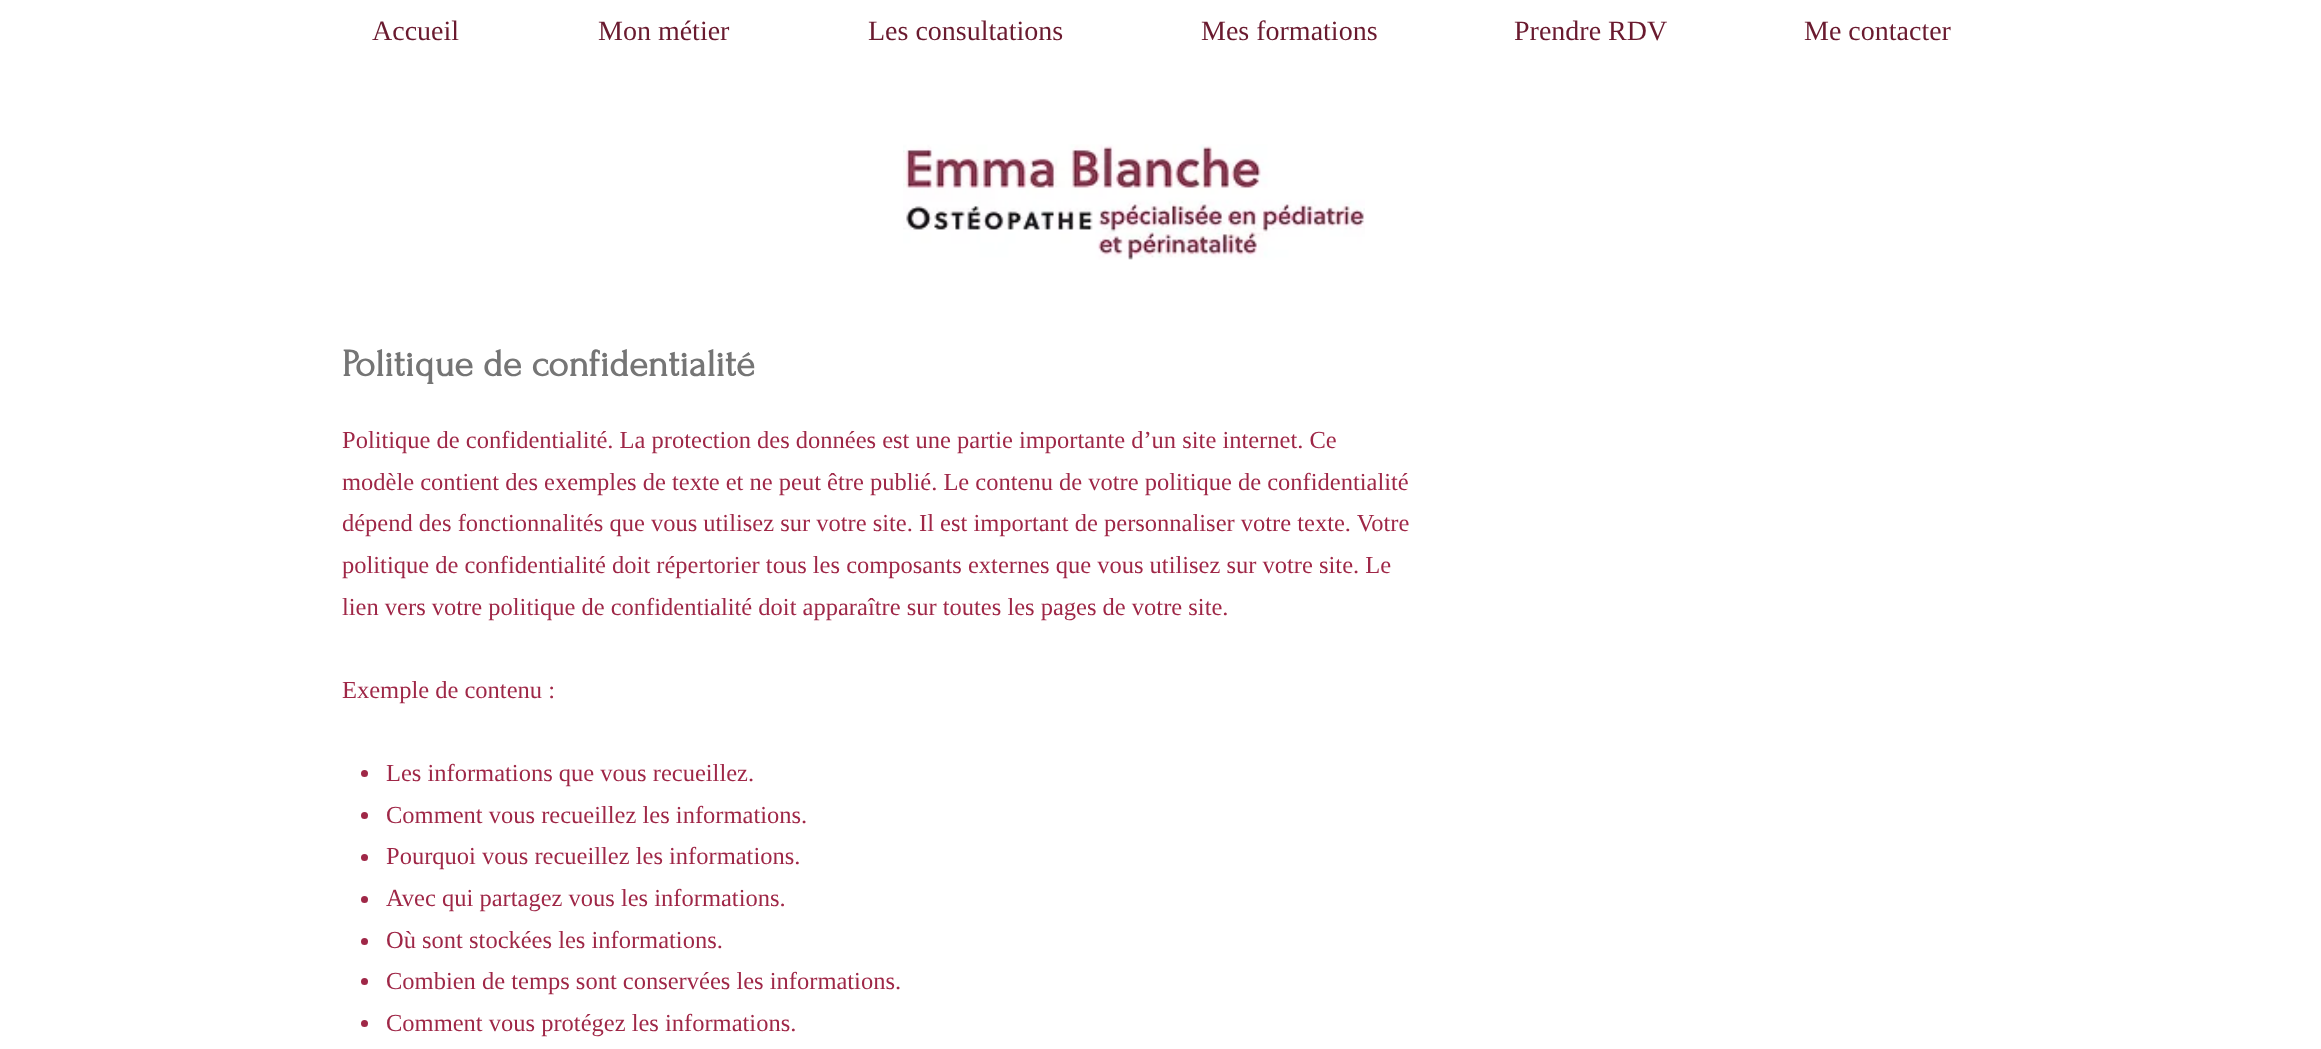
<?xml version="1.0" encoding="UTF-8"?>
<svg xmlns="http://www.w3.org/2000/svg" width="2321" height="1049">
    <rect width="100%" height="100%" fill="#FFFFFF"/>
    <text x="372" y="40" font-family="Liberation Serif" font-size="28" fill="#6A1A2F">Accueil</text>
    <text x="598" y="40" font-family="Liberation Serif" font-size="28" fill="#6A1A2F">Mon métier</text>
    <text x="868" y="40" font-family="Liberation Serif" font-size="28" fill="#6A1A2F">Les consultations</text>
    <text x="1201" y="40" font-family="Liberation Serif" font-size="28" fill="#6A1A2F">Mes formations</text>
    <text x="1514" y="40" font-family="Liberation Serif" font-size="28" fill="#6A1A2F">Prendre RDV</text>
    <text x="1804" y="40" font-family="Liberation Serif" font-size="28" fill="#6A1A2F">Me contacter</text>
    <image x="903" y="144" width="462" height="116" href="img_01.png"/>
    <text x="342" y="376" font-family="Forum" font-size="38.5" font-weight="700" fill="#757575">Politique de confidentialité</text>
    <text font-family="Liberation Serif" font-size="24.5" fill="#9F2747">
        <tspan x="342" y="448">Politique de confidentialité. La protection des données est une partie importante d’un site internet. Ce</tspan>
        <tspan x="342" y="490">modèle contient des exemples de texte et ne peut être publié. Le contenu de votre politique de confidentialité</tspan>
        <tspan x="342" y="531">dépend des fonctionnalités que vous utilisez sur votre site. Il est important de personnaliser votre texte. Votre</tspan>
        <tspan x="342" y="573">politique de confidentialité doit répertorier tous les composants externes que vous utilisez sur votre site. Le</tspan>
        <tspan x="342" y="615">lien vers votre politique de confidentialité doit apparaître sur toutes les pages de votre site.</tspan>
    </text>
    <text x="342" y="698" font-family="Liberation Serif" font-size="24.5" fill="#9F2747">Exemple de contenu :</text>
    <circle cx="364.5" cy="773.5" r="3.5" fill="#9F2747"/>
    <text x="386" y="781" font-family="Liberation Serif" font-size="24.5" fill="#9F2747">Les informations que vous recueillez.</text>
    <circle cx="364.5" cy="815.5" r="3.5" fill="#9F2747"/>
    <text x="386" y="823" font-family="Liberation Serif" font-size="24.5" fill="#9F2747">Comment vous recueillez les informations.</text>
    <circle cx="364.5" cy="857.5" r="3.5" fill="#9F2747"/>
    <text x="386" y="864" font-family="Liberation Serif" font-size="24.5" fill="#9F2747">Pourquoi vous recueillez les informations.</text>
    <circle cx="364.5" cy="899.5" r="3.5" fill="#9F2747"/>
    <text x="386" y="906" font-family="Liberation Serif" font-size="24.5" fill="#9F2747">Avec qui partagez vous les informations.</text>
    <circle cx="364.5" cy="941.5" r="3.5" fill="#9F2747"/>
    <text x="386" y="948" font-family="Liberation Serif" font-size="24.5" fill="#9F2747">Où sont stockées les informations.</text>
    <circle cx="364.5" cy="981.5" r="3.5" fill="#9F2747"/>
    <text x="386" y="989" font-family="Liberation Serif" font-size="24.5" fill="#9F2747">Combien de temps sont conservées les informations.</text>
    <circle cx="364.5" cy="1023.5" r="3.5" fill="#9F2747"/>
    <text x="386" y="1031" font-family="Liberation Serif" font-size="24.5" fill="#9F2747">Comment vous protégez les informations.</text>
</svg>
